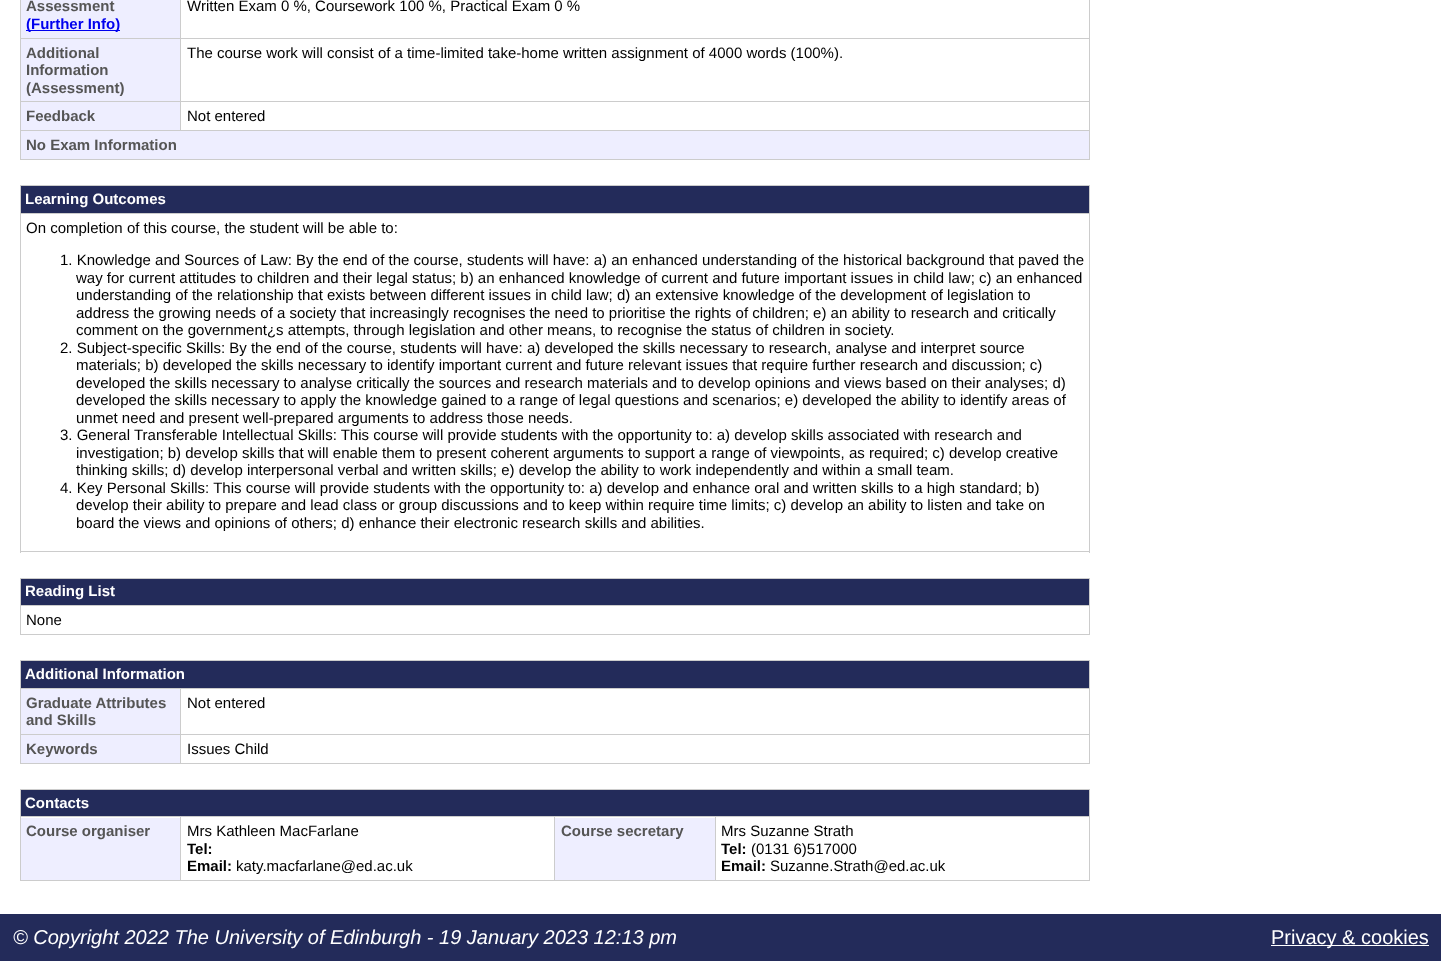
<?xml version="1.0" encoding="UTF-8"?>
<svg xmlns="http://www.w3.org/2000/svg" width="1441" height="961">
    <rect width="100%" height="100%" fill="#FFFFFF"/>
    <rect x="1089" y="0" width="1" height="160" fill="#CCCCCC"/>
    <rect x="20" y="159" width="1070" height="1" fill="#CCCCCC"/>
    <rect x="20" y="0" width="1" height="160" fill="#CCCCCC"/>
    <rect x="21" y="0" width="159" height="38" fill="#EEEEFF"/>
    <text x="26" y="11" font-family="Liberation Sans" font-size="15" font-weight="700" fill="#555555">Assessment</text>
    <rect x="26" y="30" width="94" height="1" fill="#0000EE"/>
    <text x="26" y="29" font-family="Liberation Sans" font-size="15" font-weight="700" fill="#0000EE">(Further Info)</text>
    <rect x="180" y="38" width="910" height="1" fill="#CCCCCC"/>
    <rect x="21" y="39" width="159" height="91" fill="#EEEEFF"/>
    <rect x="180" y="101" width="910" height="1" fill="#CCCCCC"/>
    <rect x="20" y="130" width="1070" height="1" fill="#CCCCCC"/>
    <rect x="180" y="101" width="1" height="30" fill="#CCCCCC"/>
    <rect x="20" y="101" width="161" height="1" fill="#CCCCCC"/>
    <rect x="180" y="38" width="1" height="65" fill="#CCCCCC"/>
    <rect x="20" y="38" width="161" height="1" fill="#CCCCCC"/>
    <rect x="180" y="0" width="1" height="39" fill="#CCCCCC"/>
    <text x="187" y="11" font-family="Liberation Sans" font-size="15" fill="#000000">Written Exam 0 %, Coursework 100 %, Practical Exam 0 %</text>
    <text font-family="Liberation Sans" font-size="15" font-weight="700" fill="#555555">
        <tspan x="26" y="58">Additional</tspan>
        <tspan x="26" y="75">Information</tspan>
        <tspan x="26" y="93">(Assessment)</tspan>
    </text>
    <text x="187" y="58" font-family="Liberation Sans" font-size="15" fill="#000000">The course work will consist of a time-limited take-home written assignment of 4000 words (100%).</text>
    <text x="26" y="121" font-family="Liberation Sans" font-size="15" font-weight="700" fill="#555555">Feedback</text>
    <text x="187" y="121" font-family="Liberation Sans" font-size="15" fill="#000000">Not entered</text>
    <rect x="21" y="131" width="1068" height="28" fill="#EEEEFF"/>
    <text x="26" y="150" font-family="Liberation Sans" font-size="15" font-weight="700" fill="#555555">No Exam Information</text>
    <rect x="20" y="185" width="1070" height="1" fill="#CCCCCC"/>
    <rect x="1089" y="185" width="1" height="368" fill="#CCCCCC"/>
    <rect x="20" y="551" width="1070" height="1" fill="#CCCCCC"/>
    <rect x="20" y="185" width="1" height="368" fill="#CCCCCC"/>
    <rect x="21" y="186" width="1068" height="27" fill="#232B5A"/>
    <text x="25" y="204" font-family="Liberation Sans" font-size="15" font-weight="700" fill="#FFFFFF">Learning Outcomes</text>
    <rect x="20" y="213" width="1070" height="1" fill="#CCCCCC"/>
    <text x="26" y="233" font-family="Liberation Sans" font-size="15" fill="#000000">On completion of this course, the student will be able to:</text>
    <text x="60" y="265" font-family="Liberation Sans" font-size="15" fill="#000000">1. Knowledge and Sources of Law: By the end of the course, students will have: a) an enhanced understanding of the historical background that paved the</text>
    <text font-family="Liberation Sans" font-size="15" fill="#000000">
        <tspan x="76" y="283">way for current attitudes to children and their legal status; b) an enhanced knowledge of current and future important issues in child law; c) an enhanced</tspan>
        <tspan x="76" y="300">understanding of the relationship that exists between different issues in child law; d) an extensive knowledge of the development of legislation to</tspan>
        <tspan x="76" y="318">address the growing needs of a society that increasingly recognises the need to prioritise the rights of children; e) an ability to research and critically</tspan>
        <tspan x="76" y="335">comment on the government¿s attempts, through legislation and other means, to recognise the status of children in society.</tspan>
    </text>
    <text x="60" y="353" font-family="Liberation Sans" font-size="15" fill="#000000">2. Subject-specific Skills: By the end of the course, students will have: a) developed the skills necessary to research, analyse and interpret source</text>
    <text font-family="Liberation Sans" font-size="15" fill="#000000">
        <tspan x="76" y="370">materials; b) developed the skills necessary to identify important current and future relevant issues that require further research and discussion; c)</tspan>
        <tspan x="76" y="388">developed the skills necessary to analyse critically the sources and research materials and to develop opinions and views based on their analyses; d)</tspan>
        <tspan x="76" y="405">developed the skills necessary to apply the knowledge gained to a range of legal questions and scenarios; e) developed the ability to identify areas of</tspan>
        <tspan x="76" y="423">unmet need and present well-prepared arguments to address those needs.</tspan>
    </text>
    <text x="60" y="440" font-family="Liberation Sans" font-size="15" fill="#000000">3. General Transferable Intellectual Skills: This course will provide students with the opportunity to: a) develop skills associated with research and</text>
    <text font-family="Liberation Sans" font-size="15" fill="#000000">
        <tspan x="76" y="458">investigation; b) develop skills that will enable them to present coherent arguments to support a range of viewpoints, as required; c) develop creative</tspan>
        <tspan x="76" y="475">thinking skills; d) develop interpersonal verbal and written skills; e) develop the ability to work independently and within a small team.</tspan>
    </text>
    <text x="60" y="493" font-family="Liberation Sans" font-size="15" fill="#000000">4. Key Personal Skills: This course will provide students with the opportunity to: a) develop and enhance oral and written skills to a high standard; b)</text>
    <text font-family="Liberation Sans" font-size="15" fill="#000000">
        <tspan x="76" y="510">develop their ability to prepare and lead class or group discussions and to keep within require time limits; c) develop an ability to listen and take on</tspan>
        <tspan x="76" y="528">board the views and opinions of others; d) enhance their electronic research skills and abilities.</tspan>
    </text>
    <rect x="20" y="578" width="1070" height="1" fill="#CCCCCC"/>
    <rect x="1089" y="578" width="1" height="57" fill="#CCCCCC"/>
    <rect x="20" y="634" width="1070" height="1" fill="#CCCCCC"/>
    <rect x="20" y="578" width="1" height="57" fill="#CCCCCC"/>
    <rect x="21" y="579" width="1068" height="26" fill="#232B5A"/>
    <text x="25" y="596" font-family="Liberation Sans" font-size="15" font-weight="700" fill="#FFFFFF">Reading List</text>
    <rect x="20" y="605" width="1070" height="1" fill="#CCCCCC"/>
    <text x="26" y="625" font-family="Liberation Sans" font-size="15" fill="#000000">None</text>
    <rect x="20" y="660" width="1070" height="1" fill="#CCCCCC"/>
    <rect x="1089" y="660" width="1" height="104" fill="#CCCCCC"/>
    <rect x="20" y="763" width="1070" height="1" fill="#CCCCCC"/>
    <rect x="20" y="660" width="1" height="104" fill="#CCCCCC"/>
    <rect x="21" y="661" width="1068" height="27" fill="#232B5A"/>
    <text x="25" y="679" font-family="Liberation Sans" font-size="15" font-weight="700" fill="#FFFFFF">Additional Information</text>
    <rect x="21" y="689" width="159" height="45" fill="#EEEEFF"/>
    <rect x="180" y="688" width="910" height="1" fill="#CCCCCC"/>
    <rect x="180" y="734" width="910" height="1" fill="#CCCCCC"/>
    <rect x="180" y="734" width="1" height="30" fill="#CCCCCC"/>
    <rect x="20" y="734" width="161" height="1" fill="#CCCCCC"/>
    <rect x="180" y="688" width="1" height="47" fill="#CCCCCC"/>
    <rect x="20" y="688" width="161" height="1" fill="#CCCCCC"/>
    <text font-family="Liberation Sans" font-size="15" font-weight="700" fill="#555555">
        <tspan x="26" y="708">Graduate Attributes</tspan>
        <tspan x="26" y="725">and Skills</tspan>
    </text>
    <text x="187" y="708" font-family="Liberation Sans" font-size="15" fill="#000000">Not entered</text>
    <rect x="21" y="735" width="159" height="28" fill="#EEEEFF"/>
    <text x="26" y="754" font-family="Liberation Sans" font-size="15" font-weight="700" fill="#555555">Keywords</text>
    <text x="187" y="754" font-family="Liberation Sans" font-size="15" fill="#000000">Issues Child</text>
    <rect x="20" y="789" width="1070" height="1" fill="#CCCCCC"/>
    <rect x="1089" y="789" width="1" height="92" fill="#CCCCCC"/>
    <rect x="20" y="880" width="1070" height="1" fill="#CCCCCC"/>
    <rect x="20" y="789" width="1" height="92" fill="#CCCCCC"/>
    <rect x="21" y="790" width="1068" height="26" fill="#232B5A"/>
    <text x="25" y="808" font-family="Liberation Sans" font-size="15" font-weight="700" fill="#FFFFFF">Contacts</text>
    <rect x="21" y="818" width="159" height="62" fill="#EEEEFF"/>
    <rect x="715" y="816" width="375" height="1" fill="#CCCCCC"/>
    <rect x="715" y="816" width="1" height="65" fill="#CCCCCC"/>
    <rect x="554" y="816" width="162" height="1" fill="#CCCCCC"/>
    <rect x="554" y="816" width="1" height="65" fill="#CCCCCC"/>
    <rect x="180" y="816" width="375" height="1" fill="#CCCCCC"/>
    <rect x="180" y="816" width="1" height="65" fill="#CCCCCC"/>
    <rect x="20" y="816" width="161" height="1" fill="#CCCCCC"/>
    <text x="26" y="836" font-family="Liberation Sans" font-size="15" font-weight="700" fill="#555555">Course organiser</text>
    <text x="187" y="836" font-family="Liberation Sans" font-size="15" fill="#000000">Mrs Kathleen MacFarlane</text>
    <text font-family="Liberation Sans" font-size="15" font-weight="700" fill="#000000">
        <tspan x="187" y="854">Tel:</tspan>
        <tspan x="187" y="871">Email:</tspan>
    </text>
    <text x="236" y="871" font-family="Liberation Sans" font-size="15" fill="#000000">katy.macfarlane@ed.ac.uk</text>
    <rect x="555" y="818" width="160" height="62" fill="#EEEEFF"/>
    <text x="561" y="836" font-family="Liberation Sans" font-size="15" font-weight="700" fill="#555555">Course secretary</text>
    <text x="721" y="836" font-family="Liberation Sans" font-size="15" fill="#000000">Mrs Suzanne Strath</text>
    <text x="721" y="854" font-family="Liberation Sans" font-size="15" font-weight="700" fill="#000000">Tel:</text>
    <text x="751" y="854" font-family="Liberation Sans" font-size="15" fill="#000000">(0131 6)517000</text>
    <text x="721" y="871" font-family="Liberation Sans" font-size="15" font-weight="700" fill="#000000">Email:</text>
    <text x="770" y="871" font-family="Liberation Sans" font-size="15" fill="#000000">Suzanne.Strath@ed.ac.uk</text>
    <rect x="0" y="914" width="1441" height="47" fill="#232B5A"/>
    <text x="13" y="944" font-family="Liberation Sans" font-size="20" font-style="italic" fill="#FFFFFF">© Copyright 2022 The University of Edinburgh - 19 January 2023 12:13 pm</text>
    <rect x="1271" y="945" width="158" height="1" fill="#FFFFFF"/>
    <text x="1271" y="944" font-family="Liberation Sans" font-size="20" fill="#FFFFFF">Privacy &amp; cookies</text>
</svg>
